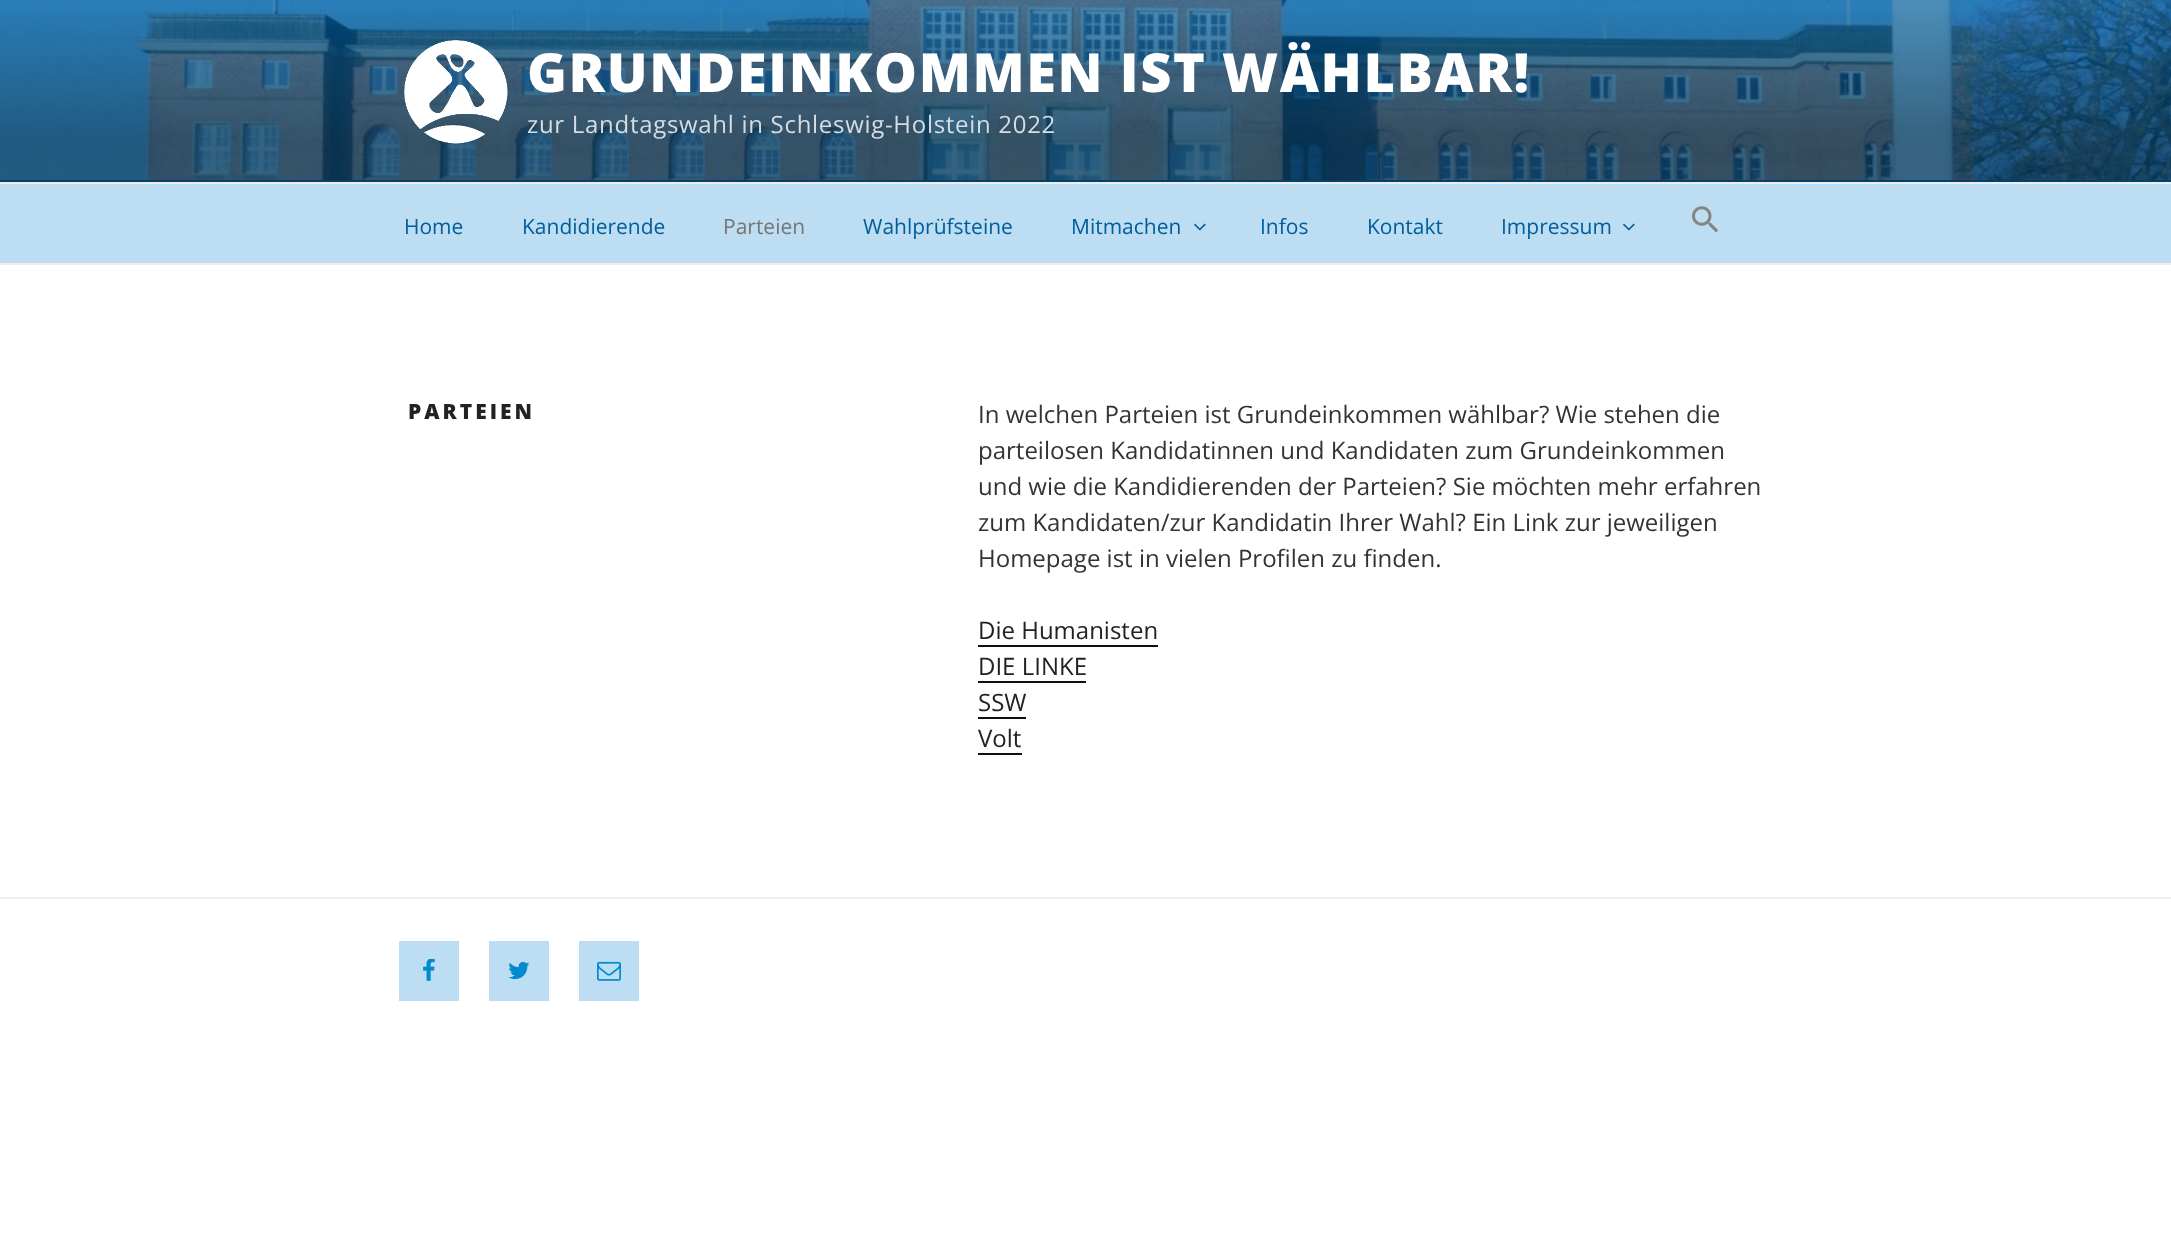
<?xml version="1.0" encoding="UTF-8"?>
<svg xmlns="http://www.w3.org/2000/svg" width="2171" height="1246">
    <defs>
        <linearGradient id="g1" gradientUnits="userSpaceOnUse" x1="1086" y1="0" x2="1086" y2="182"><stop offset="0" stop-color="#000000" stop-opacity="0"/><stop offset="0.75" stop-color="#000000" stop-opacity="0.3"/><stop offset="1" stop-color="#000000" stop-opacity="0.3"/></linearGradient>
    </defs>
    <rect width="100%" height="100%" fill="#FFFFFF"/>
    <rect x="0" y="0" width="2171" height="182" fill="#005E9B"/>
    <image x="0" y="0" width="2171" height="180" href="img_01.png"/>
    <rect x="0" y="10" width="2171" height="172" fill="url(#g1)"/>
    <image x="404" y="40" width="104" height="104" href="img_02.png"/>
    <text x="527" y="92" font-family="Open Sans" font-size="54" font-weight="800" letter-spacing="1.6" fill="#FFFFFF">GRUNDEINKOMMEN IST WÄHLBAR!</text>
    <text x="527" y="133" font-family="Open Sans" font-size="24" letter-spacing="0.7" fill="#D6DDE2">zur Landtagswahl in Schleswig-Holstein 2022</text>
    <rect x="0" y="184" width="2171" height="79" fill="#BDDDF2"/>
    <rect x="0" y="182" width="2171" height="2" fill="#EEEEEE"/>
    <rect x="0" y="263" width="2171" height="2" fill="#EEEEEE"/>
    <text x="404" y="234" font-family="Open Sans" font-size="21" fill="#005E9B">Home</text>
    <text x="522" y="234" font-family="Open Sans" font-size="21" fill="#005E9B">Kandidierende</text>
    <text x="723" y="234" font-family="Open Sans" font-size="21" fill="#767676">Parteien</text>
    <text x="863" y="234" font-family="Open Sans" font-size="21" fill="#005E9B">Wahlprüfsteine</text>
    <text x="1071" y="234" font-family="Open Sans" font-size="21" fill="#005E9B">Mitmachen</text>
    <image x="1194" y="223" width="12" height="8" href="img_03.png"/>
    <text x="1260" y="234" font-family="Open Sans" font-size="21" fill="#005E9B">Infos</text>
    <text x="1367" y="234" font-family="Open Sans" font-size="21" fill="#005E9B">Kontakt</text>
    <text x="1501" y="234" font-family="Open Sans" font-size="21" fill="#005E9B">Impressum</text>
    <image x="1623" y="223" width="12" height="8" href="img_03.png"/>
    <image x="1692" y="206" width="27" height="27" href="img_04.png"/>
    <text x="408" y="419" font-family="Open Sans" font-size="21" font-weight="800" letter-spacing="3" fill="#222222">PARTEIEN</text>
    <text font-family="Open Sans" font-size="24" fill="#333333">
        <tspan x="978" y="423">In welchen Parteien ist Grundeinkommen wählbar? Wie stehen die</tspan>
        <tspan x="978" y="459">parteilosen Kandidatinnen und Kandidaten zum Grundeinkommen</tspan>
        <tspan x="978" y="495">und wie die Kandidierenden der Parteien? Sie möchten mehr erfahren</tspan>
        <tspan x="978" y="531">zum Kandidaten/zur Kandidatin Ihrer Wahl? Ein Link zur jeweiligen</tspan>
        <tspan x="978" y="567">Homepage ist in vielen Profilen zu finden.</tspan>
    </text>
    <text x="978" y="639" font-family="Open Sans" font-size="24" fill="#222222">Die Humanisten</text>
    <rect x="978" y="645" width="180" height="2" fill="#0F0F0F"/>
    <text x="978" y="675" font-family="Open Sans" font-size="24" fill="#222222">DIE LINKE</text>
    <rect x="978" y="681" width="108" height="2" fill="#0F0F0F"/>
    <text x="978" y="711" font-family="Open Sans" font-size="24" fill="#222222">SSW</text>
    <rect x="978" y="717" width="48" height="2" fill="#0F0F0F"/>
    <text x="978" y="747" font-family="Open Sans" font-size="24" fill="#222222">Volt</text>
    <rect x="978" y="753" width="44" height="2" fill="#0F0F0F"/>
    <rect x="0" y="897" width="2171" height="2" fill="#EEEEEE"/>
    <rect x="399" y="941" width="60" height="60" fill="#BDDDF2"/>
    <image x="423" y="959" width="12" height="22" href="img_05.png"/>
    <rect x="489" y="941" width="60" height="60" fill="#BDDDF2"/>
    <image x="508" y="961" width="22" height="19" href="img_06.png"/>
    <rect x="579" y="941" width="60" height="60" fill="#BDDDF2"/>
    <image x="597" y="961" width="24" height="20" href="img_07.png"/>
</svg>
